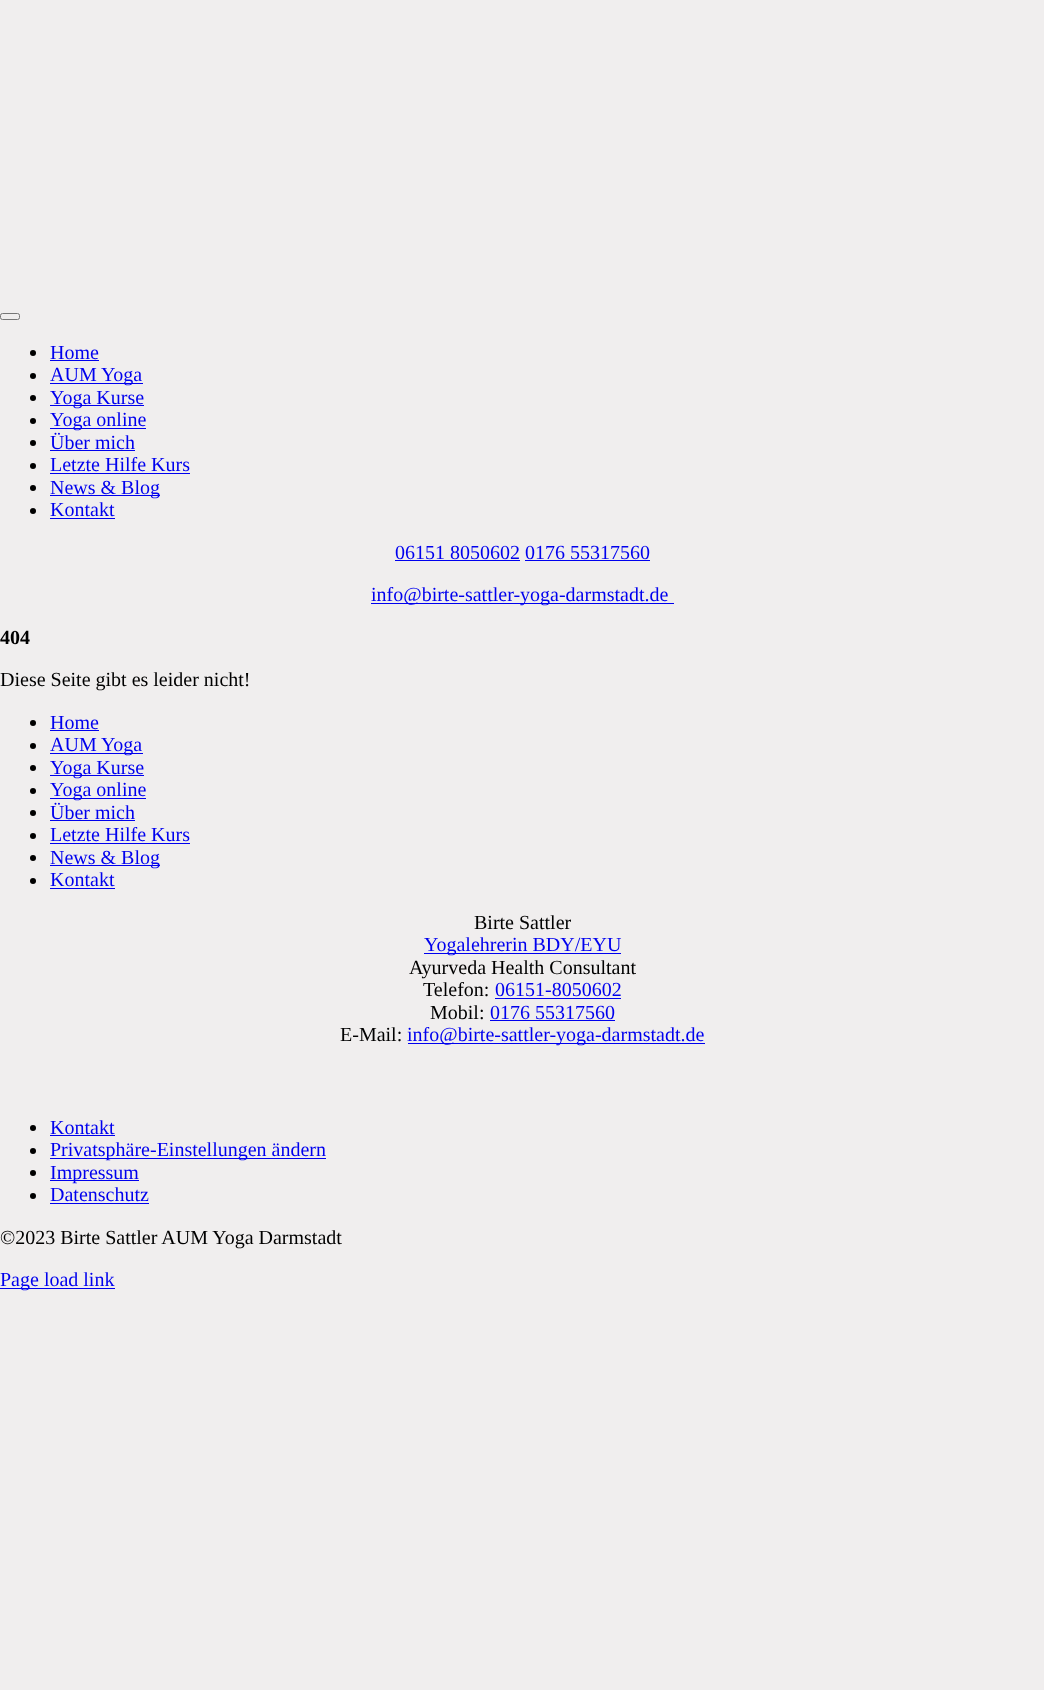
<?xml version="1.0" encoding="UTF-8"?>
<svg xmlns="http://www.w3.org/2000/svg" width="1044" height="1690">
    <rect width="100%" height="100%" fill="#F0EEEE"/>
    <rect x="0.5" y="313.5" width="19" height="6" rx="2" fill="none" stroke="#767676"/>
    <circle cx="33" cy="353" r="3" fill="#000000"/>
    <text x="50" y="359" font-family="Liberation Serif" font-size="20" fill="#0000EE">Home</text>
    <rect x="50" y="360" width="49" height="1" fill="#0000EE"/>
    <circle cx="33" cy="376" r="3" fill="#000000"/>
    <rect x="50" y="383" width="93" height="1" fill="#0000EE"/>
    <text x="50" y="381" font-family="Liberation Serif" font-size="20" fill="#0000EE">AUM Yoga</text>
    <circle cx="33" cy="398" r="3" fill="#000000"/>
    <rect x="50" y="405" width="94" height="1" fill="#0000EE"/>
    <text x="50" y="404" font-family="Liberation Serif" font-size="20" fill="#0000EE">Yoga Kurse</text>
    <circle cx="33" cy="421" r="3" fill="#000000"/>
    <rect x="50" y="428" width="96" height="1" fill="#0000EE"/>
    <text x="50" y="426" font-family="Liberation Serif" font-size="20" fill="#0000EE">Yoga online</text>
    <circle cx="33" cy="443" r="3" fill="#000000"/>
    <text x="50" y="449" font-family="Liberation Serif" font-size="20" fill="#0000EE">Über mich</text>
    <rect x="50" y="450" width="85" height="1" fill="#0000EE"/>
    <circle cx="33" cy="466" r="3" fill="#000000"/>
    <text x="50" y="471" font-family="Liberation Serif" font-size="20" fill="#0000EE">Letzte Hilfe Kurs</text>
    <rect x="50" y="473" width="140" height="1" fill="#0000EE"/>
    <circle cx="33" cy="488" r="3" fill="#000000"/>
    <rect x="50" y="495" width="110" height="1" fill="#0000EE"/>
    <text x="50" y="494" font-family="Liberation Serif" font-size="20" fill="#0000EE">News &amp; Blog</text>
    <circle cx="33" cy="511" r="3" fill="#000000"/>
    <text x="50" y="516" font-family="Liberation Serif" font-size="20" fill="#0000EE">Kontakt</text>
    <rect x="50" y="518" width="65" height="1" fill="#0000EE"/>
    <text x="395" y="559" font-family="Liberation Serif" font-size="20" fill="#0000EE">06151 8050602 0176 55317560</text>
    <rect x="395" y="560" width="125" height="1" fill="#0000EE"/>
    <rect x="525" y="560" width="125" height="1" fill="#0000EE"/>
    <rect x="371" y="603" width="303" height="1" fill="#0000EE"/>
    <text x="371" y="601" font-family="Liberation Serif" font-size="20" fill="#0000EE">info@birte-sattler-yoga-darmstadt.de</text>
    <text x="0" y="644" font-family="Liberation Serif" font-size="20" font-weight="700" fill="#000000">404</text>
    <text x="0" y="686" font-family="Liberation Serif" font-size="20" fill="#000000">Diese Seite gibt es leider nicht!</text>
    <circle cx="33" cy="723" r="3" fill="#000000"/>
    <text x="50" y="729" font-family="Liberation Serif" font-size="20" fill="#0000EE">Home</text>
    <rect x="50" y="730" width="49" height="1" fill="#0000EE"/>
    <circle cx="33" cy="746" r="3" fill="#000000"/>
    <rect x="50" y="753" width="93" height="1" fill="#0000EE"/>
    <text x="50" y="751" font-family="Liberation Serif" font-size="20" fill="#0000EE">AUM Yoga</text>
    <circle cx="33" cy="768" r="3" fill="#000000"/>
    <rect x="50" y="775" width="94" height="1" fill="#0000EE"/>
    <text x="50" y="774" font-family="Liberation Serif" font-size="20" fill="#0000EE">Yoga Kurse</text>
    <circle cx="33" cy="791" r="3" fill="#000000"/>
    <rect x="50" y="798" width="96" height="1" fill="#0000EE"/>
    <text x="50" y="796" font-family="Liberation Serif" font-size="20" fill="#0000EE">Yoga online</text>
    <circle cx="33" cy="813" r="3" fill="#000000"/>
    <text x="50" y="819" font-family="Liberation Serif" font-size="20" fill="#0000EE">Über mich</text>
    <rect x="50" y="820" width="85" height="1" fill="#0000EE"/>
    <circle cx="33" cy="836" r="3" fill="#000000"/>
    <text x="50" y="841" font-family="Liberation Serif" font-size="20" fill="#0000EE">Letzte Hilfe Kurs</text>
    <rect x="50" y="843" width="140" height="1" fill="#0000EE"/>
    <circle cx="33" cy="858" r="3" fill="#000000"/>
    <rect x="50" y="865" width="110" height="1" fill="#0000EE"/>
    <text x="50" y="864" font-family="Liberation Serif" font-size="20" fill="#0000EE">News &amp; Blog</text>
    <circle cx="33" cy="881" r="3" fill="#000000"/>
    <text x="50" y="886" font-family="Liberation Serif" font-size="20" fill="#0000EE">Kontakt</text>
    <rect x="50" y="888" width="65" height="1" fill="#0000EE"/>
    <text x="474" y="929" font-family="Liberation Serif" font-size="20" fill="#000000">Birte Sattler</text>
    <rect x="424" y="953" width="197" height="1" fill="#0000EE"/>
    <text x="424" y="951" font-family="Liberation Serif" font-size="20" fill="#0000EE">Yogalehrerin BDY/EYU</text>
    <text x="409" y="974" font-family="Liberation Serif" font-size="20" fill="#000000">Ayurveda Health Consultant</text>
    <text x="423" y="996" font-family="Liberation Serif" font-size="20" fill="#000000">Telefon:</text>
    <text x="495" y="996" font-family="Liberation Serif" font-size="20" fill="#0000EE">06151-8050602</text>
    <rect x="495" y="998" width="126" height="1" fill="#0000EE"/>
    <text x="430" y="1019" font-family="Liberation Serif" font-size="20" fill="#000000">Mobil:</text>
    <text x="490" y="1019" font-family="Liberation Serif" font-size="20" fill="#0000EE">0176 55317560</text>
    <rect x="490" y="1020" width="125" height="1" fill="#0000EE"/>
    <text x="340" y="1041" font-family="Liberation Serif" font-size="20" fill="#000000">E-Mail:</text>
    <rect x="408" y="1043" width="297" height="1" fill="#0000EE"/>
    <text x="407" y="1041" font-family="Liberation Serif" font-size="20" fill="#0000EE">info@birte-sattler-yoga-darmstadt.de</text>
    <circle cx="33" cy="1128" r="3" fill="#000000"/>
    <text x="50" y="1134" font-family="Liberation Serif" font-size="20" fill="#0000EE">Kontakt</text>
    <rect x="50" y="1135" width="65" height="1" fill="#0000EE"/>
    <circle cx="33" cy="1151" r="3" fill="#000000"/>
    <rect x="50" y="1158" width="276" height="1" fill="#0000EE"/>
    <text x="50" y="1156" font-family="Liberation Serif" font-size="20" fill="#0000EE">Privatsphäre-Einstellungen ändern</text>
    <circle cx="33" cy="1173" r="3" fill="#000000"/>
    <rect x="50" y="1180" width="89" height="1" fill="#0000EE"/>
    <text x="50" y="1179" font-family="Liberation Serif" font-size="20" fill="#0000EE">Impressum</text>
    <circle cx="33" cy="1196" r="3" fill="#000000"/>
    <text x="50" y="1201" font-family="Liberation Serif" font-size="20" fill="#0000EE">Datenschutz</text>
    <rect x="50" y="1203" width="99" height="1" fill="#0000EE"/>
    <text x="0" y="1244" font-family="Liberation Serif" font-size="20" fill="#000000">©2023 Birte Sattler AUM Yoga Darmstadt</text>
    <rect x="0" y="1288" width="115" height="1" fill="#0000EE"/>
    <text x="0" y="1286" font-family="Liberation Serif" font-size="20" fill="#0000EE">Page load link</text>
</svg>
